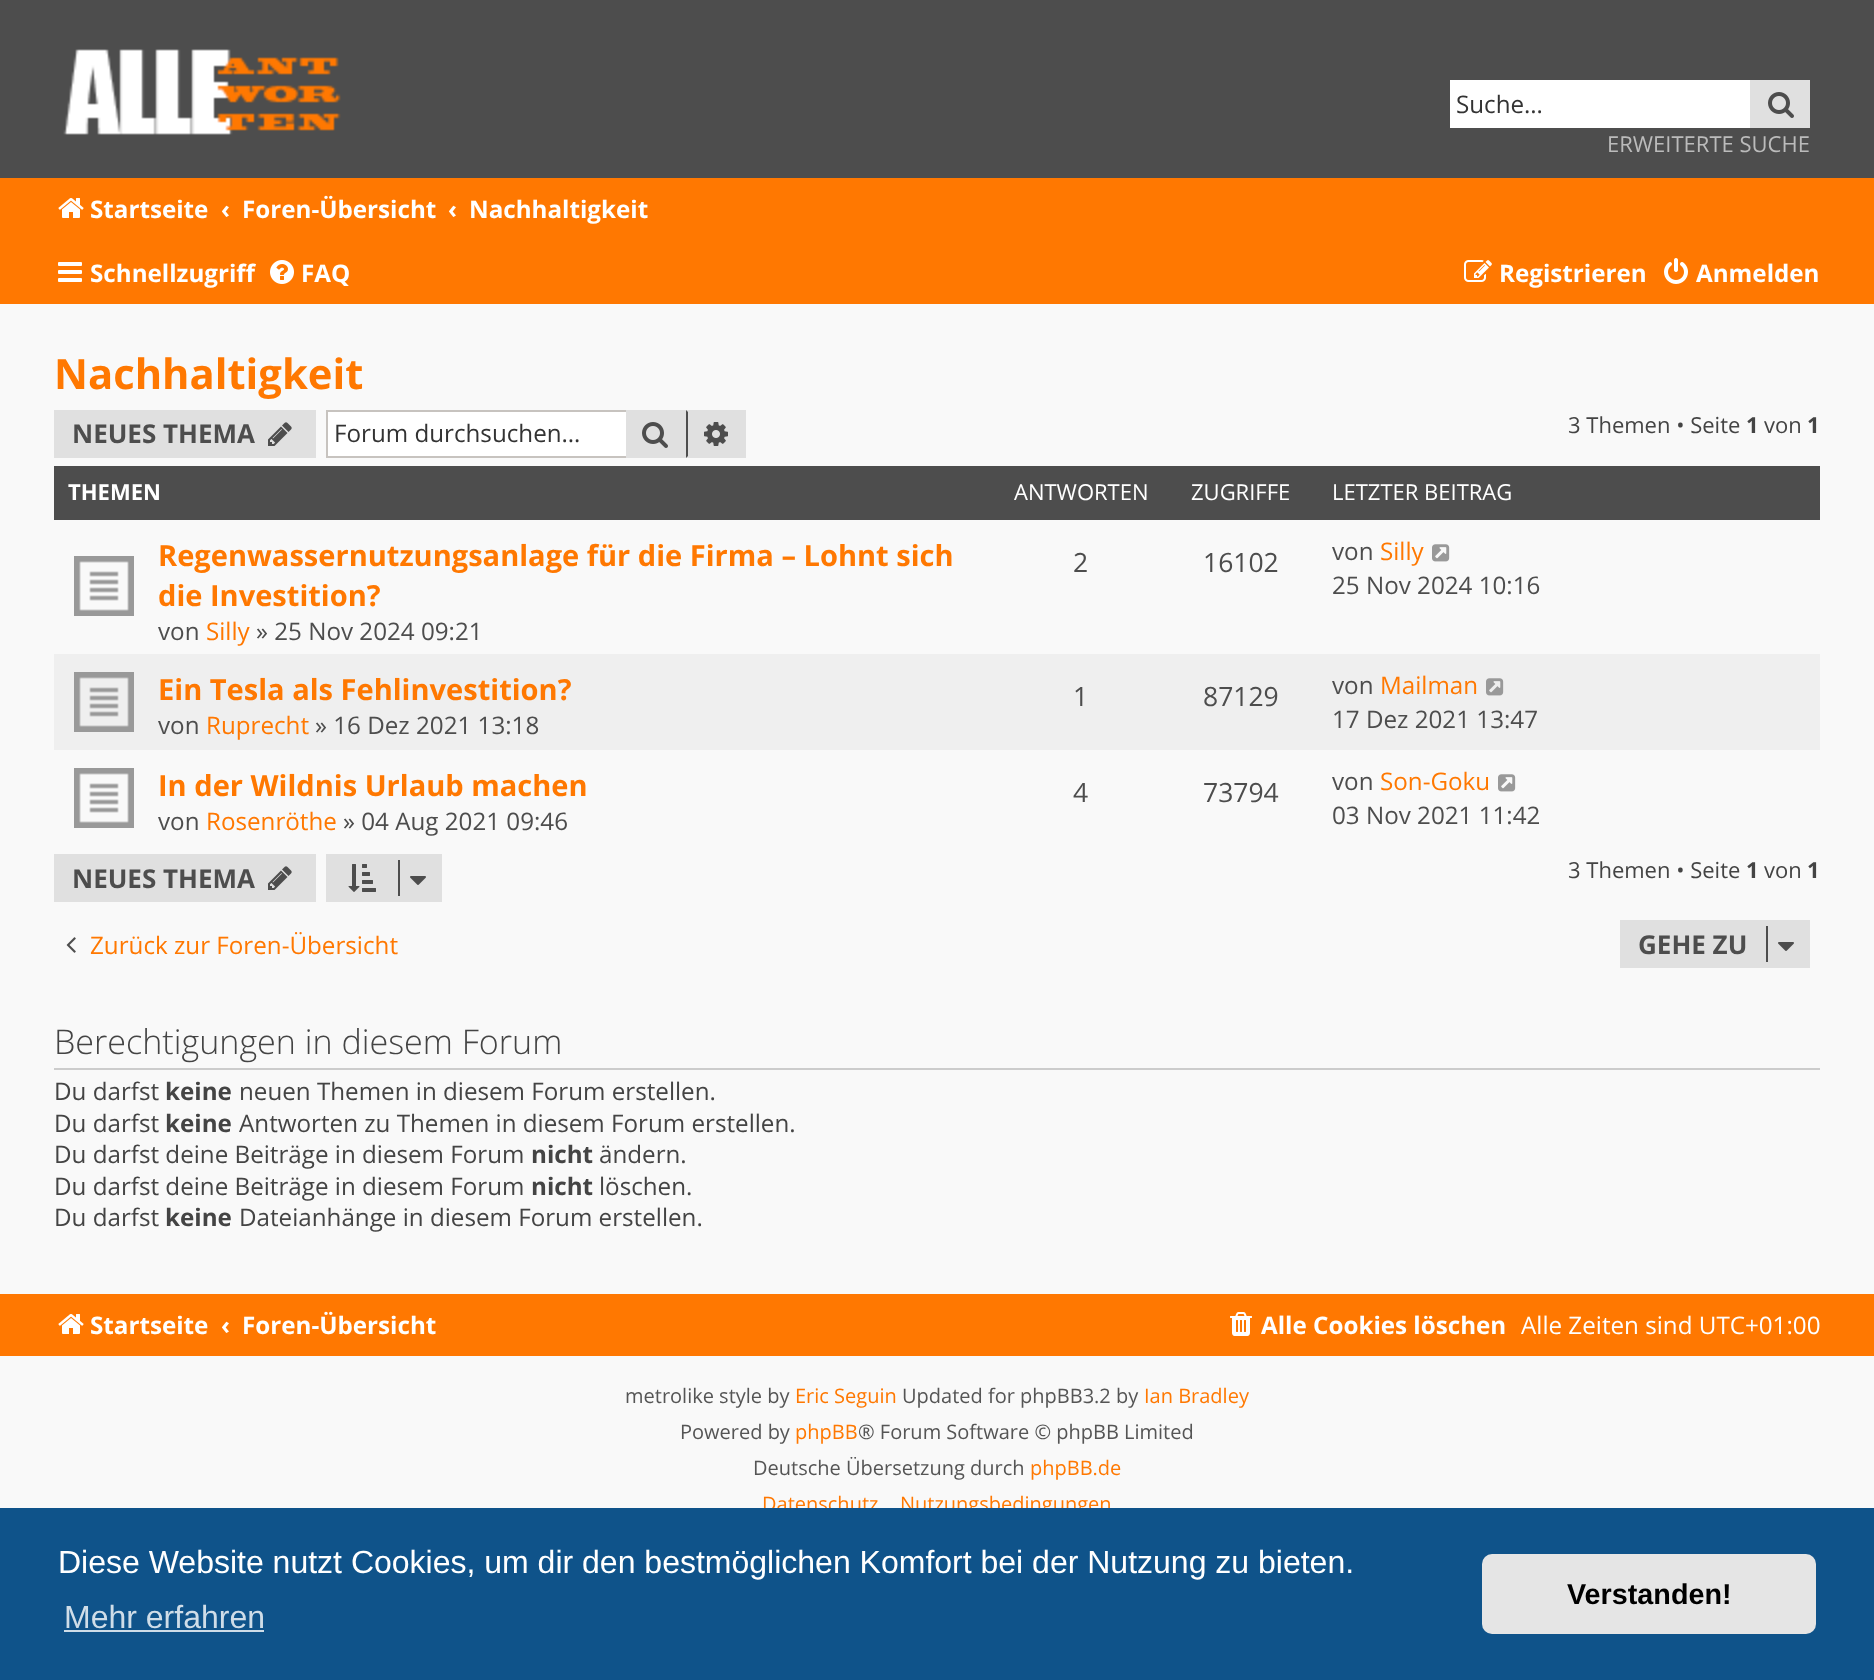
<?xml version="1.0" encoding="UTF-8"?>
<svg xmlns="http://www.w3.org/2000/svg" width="1874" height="1680">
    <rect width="100%" height="100%" fill="#F9F9F9"/>
    <rect x="0" y="0" width="1874" height="178" fill="#4D4D4D"/>
    <image x="63" y="49" width="278" height="86" href="img_01.png"/>
    <rect x="1450" y="80" width="300" height="48" fill="#FFFFFF"/>
    <text x="1456" y="113" font-family="Open Sans" font-size="24.2" fill="#333333">Suche…</text>
    <rect x="1750" y="80" width="60" height="48" fill="#E0E0E0"/>
    <image x="1768" y="92" width="26" height="26" href="img_02.png"/>
    <text x="1607" y="152" font-family="Open Sans" font-size="22" fill="#BBBBBB">ERWEITERTE SUCHE</text>
    <rect x="0" y="178" width="1874" height="126" fill="#FF7801"/>
    <image x="58" y="198" width="26" height="20" href="img_03.png"/>
    <text x="90" y="218" font-family="Open Sans" font-size="24.2" font-weight="700" fill="#FFFFFF">Startseite</text>
    <text x="221" y="218" font-family="Open Sans" font-size="24.2" font-weight="700" fill="#FFFFFF">‹</text>
    <text x="242" y="218" font-family="Open Sans" font-size="24.2" font-weight="700" fill="#FFFFFF">Foren-Übersicht</text>
    <text x="448" y="218" font-family="Open Sans" font-size="24.2" font-weight="700" fill="#FFFFFF">‹</text>
    <text x="469" y="218" font-family="Open Sans" font-size="24.2" font-weight="700" fill="#FFFFFF">Nachhaltigkeit</text>
    <image x="58" y="262" width="24" height="20" href="img_04.png"/>
    <text x="90" y="282" font-family="Open Sans" font-size="24.2" font-weight="700" fill="#FFFFFF">Schnellzugriff</text>
    <image x="270" y="260" width="24" height="24" href="img_05.png"/>
    <text x="301" y="282" font-family="Open Sans" font-size="24.2" font-weight="700" fill="#FFFFFF">FAQ</text>
    <image x="1464" y="260" width="28" height="22" href="img_06.png"/>
    <text x="1499" y="282" font-family="Open Sans" font-size="24.2" font-weight="700" fill="#FFFFFF">Registrieren</text>
    <image x="1664" y="258" width="24" height="26" href="img_07.png"/>
    <text x="1696" y="282" font-family="Open Sans" font-size="24.2" font-weight="700" fill="#FFFFFF">Anmelden</text>
    <text x="54" y="389" font-family="Open Sans" font-size="41.75" font-weight="700" fill="#FF7801">Nachhaltigkeit</text>
    <rect x="54" y="410" width="262" height="48" fill="#E0E0E0"/>
    <text x="72" y="443" font-family="Open Sans" font-size="26" font-weight="700" fill="#4D4D4D">NEUES THEMA</text>
    <image x="268" y="422" width="24" height="24" href="img_08.png"/>
    <rect x="626" y="410" width="120" height="48" fill="#E0E0E0"/>
    <image x="642" y="422" width="26" height="26" href="img_02.png"/>
    <rect x="328" y="412" width="298" height="44" fill="#FFFFFF"/>
    <rect x="326" y="410" width="300" height="2" fill="#C7C3BF"/>
    <rect x="326" y="456" width="300" height="2" fill="#C7C3BF"/>
    <rect x="326" y="410" width="2" height="48" fill="#C7C3BF"/>
    <text x="334" y="442" font-family="Open Sans" font-size="24.2" fill="#333333">Forum durchsuchen…</text>
    <path d="M 686 458 V 410 L 688 412 V 456 Z" fill="#4D4D4D"/>
    <image x="704" y="422" width="24" height="24" href="img_09.png"/>
    <text x="1568" y="433" font-family="Open Sans" font-size="22" fill="#444444">3 Themen • Seite</text>
    <text x="1746" y="433" font-family="Open Sans" font-size="22" font-weight="700" fill="#444444">1</text>
    <text x="1764" y="433" font-family="Open Sans" font-size="22" fill="#444444">von</text>
    <text x="1807" y="433" font-family="Open Sans" font-size="22" font-weight="700" fill="#444444">1</text>
    <rect x="54" y="466" width="1766" height="54" fill="#4D4D4D"/>
    <text x="68" y="500" font-family="Open Sans" font-size="22" font-weight="700" fill="#FFFFFF">THEMEN</text>
    <text x="1014" y="500" font-family="Open Sans" font-size="22" fill="#FFFFFF">ANTWORTEN</text>
    <text x="1191" y="500" font-family="Open Sans" font-size="22" fill="#FFFFFF">ZUGRIFFE</text>
    <text x="1332" y="500" font-family="Open Sans" font-size="22" fill="#FFFFFF">LETZTER BEITRAG</text>
    <image x="74" y="556" width="60" height="60" href="img_10.png"/>
    <text font-family="Open Sans" font-size="29.05" font-weight="700" fill="#FF7801">
        <tspan x="158" y="566">Regenwassernutzungsanlage für die Firma – Lohnt sich</tspan>
        <tspan x="158" y="606">die Investition?</tspan>
    </text>
    <text x="158" y="640" font-family="Open Sans" font-size="24.2" fill="#4D4D4D">von</text>
    <text x="206" y="640" font-family="Open Sans" font-size="24.2" fill="#FF7801">Silly</text>
    <text x="256" y="640" font-family="Open Sans" font-size="24.2" fill="#4D4D4D">» 25 Nov 2024 09:21</text>
    <text x="1073" y="572" font-family="Open Sans" font-size="26.5" fill="#4D4D4D">2</text>
    <text x="1203" y="572" font-family="Open Sans" font-size="26.5" fill="#4D4D4D">16102</text>
    <text x="1332" y="560" font-family="Open Sans" font-size="24.2" fill="#4D4D4D">von</text>
    <text x="1380" y="560" font-family="Open Sans" font-size="24.2" fill="#FF7801">Silly</text>
    <image x="1432" y="544" width="18" height="18" href="img_11.png"/>
    <text x="1332" y="594" font-family="Open Sans" font-size="24.2" fill="#4D4D4D">25 Nov 2024 10:16</text>
    <rect x="54" y="654" width="1766" height="96" fill="#EFEFEF"/>
    <image x="74" y="672" width="60" height="60" href="img_12.png"/>
    <text x="158" y="700" font-family="Open Sans" font-size="29.05" font-weight="700" fill="#FF7801">Ein Tesla als Fehlinvestition?</text>
    <text x="158" y="734" font-family="Open Sans" font-size="24.2" fill="#4D4D4D">von</text>
    <text x="206" y="734" font-family="Open Sans" font-size="24.2" fill="#FF7801">Ruprecht</text>
    <text x="315" y="734" font-family="Open Sans" font-size="24.2" fill="#4D4D4D">» 16 Dez 2021 13:18</text>
    <text x="1073" y="706" font-family="Open Sans" font-size="26.5" fill="#4D4D4D">1</text>
    <text x="1203" y="706" font-family="Open Sans" font-size="26.5" fill="#4D4D4D">87129</text>
    <text x="1332" y="694" font-family="Open Sans" font-size="24.2" fill="#4D4D4D">von</text>
    <text x="1380" y="694" font-family="Open Sans" font-size="24.2" fill="#FF7801">Mailman</text>
    <image x="1486" y="678" width="18" height="18" href="img_13.png"/>
    <text x="1332" y="728" font-family="Open Sans" font-size="24.2" fill="#4D4D4D">17 Dez 2021 13:47</text>
    <image x="74" y="768" width="60" height="60" href="img_10.png"/>
    <text x="158" y="796" font-family="Open Sans" font-size="29.05" font-weight="700" fill="#FF7801">In der Wildnis Urlaub machen</text>
    <text x="158" y="830" font-family="Open Sans" font-size="24.2" fill="#4D4D4D">von</text>
    <text x="206" y="830" font-family="Open Sans" font-size="24.2" fill="#FF7801">Rosenröthe</text>
    <text x="343" y="830" font-family="Open Sans" font-size="24.2" fill="#4D4D4D">» 04 Aug 2021 09:46</text>
    <text x="1073" y="802" font-family="Open Sans" font-size="26.5" fill="#4D4D4D">4</text>
    <text x="1203" y="802" font-family="Open Sans" font-size="26.5" fill="#4D4D4D">73794</text>
    <text x="1332" y="790" font-family="Open Sans" font-size="24.2" fill="#4D4D4D">von</text>
    <text x="1380" y="790" font-family="Open Sans" font-size="24.2" fill="#FF7801">Son-Goku</text>
    <image x="1498" y="774" width="18" height="18" href="img_11.png"/>
    <text x="1332" y="824" font-family="Open Sans" font-size="24.2" fill="#4D4D4D">03 Nov 2021 11:42</text>
    <rect x="54" y="854" width="262" height="48" fill="#E0E0E0"/>
    <text x="72" y="888" font-family="Open Sans" font-size="26" font-weight="700" fill="#4D4D4D">NEUES THEMA</text>
    <image x="268" y="866" width="24" height="24" href="img_08.png"/>
    <rect x="326" y="854" width="116" height="48" fill="#E0E0E0"/>
    <image x="348" y="864" width="28" height="28" href="img_14.png"/>
    <rect x="398" y="860" width="2" height="36" fill="#4D4D4D"/>
    <image x="410" y="876" width="16" height="9" href="img_15.png"/>
    <text x="1568" y="878" font-family="Open Sans" font-size="22" fill="#444444">3 Themen • Seite</text>
    <text x="1746" y="878" font-family="Open Sans" font-size="22" font-weight="700" fill="#444444">1</text>
    <text x="1764" y="878" font-family="Open Sans" font-size="22" fill="#444444">von</text>
    <text x="1807" y="878" font-family="Open Sans" font-size="22" font-weight="700" fill="#444444">1</text>
    <image x="66" y="937" width="10" height="16" href="img_16.png"/>
    <text x="90" y="954" font-family="Open Sans" font-size="24.2" fill="#FF7801">Zurück zur Foren-Übersicht</text>
    <rect x="1620" y="920" width="190" height="48" fill="#E0E0E0"/>
    <text x="1638" y="954" font-family="Open Sans" font-size="26" font-weight="700" fill="#4D4D4D">GEHE ZU</text>
    <rect x="1766" y="926" width="2" height="36" fill="#4D4D4D"/>
    <image x="1778" y="942" width="16" height="9" href="img_15.png"/>
    <rect x="54" y="1068" width="1766" height="2" fill="#CCCCCC"/>
    <text x="54" y="1054" font-family="Open Sans" font-size="34.1" font-weight="300" fill="#444444">Berechtigungen in diesem Forum</text>
    <text x="54" y="1100" font-family="Open Sans" font-size="24.2" fill="#444444">Du darfst</text>
    <text x="165" y="1100" font-family="Open Sans" font-size="24.2" font-weight="700" fill="#444444">keine</text>
    <text x="239" y="1100" font-family="Open Sans" font-size="24.2" fill="#444444">neuen Themen in diesem Forum erstellen.</text>
    <text x="54" y="1132" font-family="Open Sans" font-size="24.2" fill="#444444">Du darfst</text>
    <text x="165" y="1132" font-family="Open Sans" font-size="24.2" font-weight="700" fill="#444444">keine</text>
    <text x="239" y="1132" font-family="Open Sans" font-size="24.2" fill="#444444">Antworten zu Themen in diesem Forum erstellen.</text>
    <text x="54" y="1163" font-family="Open Sans" font-size="24.2" fill="#444444">Du darfst deine Beiträge in diesem Forum</text>
    <text x="531" y="1163" font-family="Open Sans" font-size="24.2" font-weight="700" fill="#444444">nicht</text>
    <text x="599" y="1163" font-family="Open Sans" font-size="24.2" fill="#444444">ändern.</text>
    <text x="54" y="1195" font-family="Open Sans" font-size="24.2" fill="#444444">Du darfst deine Beiträge in diesem Forum</text>
    <text x="531" y="1195" font-family="Open Sans" font-size="24.2" font-weight="700" fill="#444444">nicht</text>
    <text x="599" y="1195" font-family="Open Sans" font-size="24.2" fill="#444444">löschen.</text>
    <text x="54" y="1226" font-family="Open Sans" font-size="24.2" fill="#444444">Du darfst</text>
    <text x="165" y="1226" font-family="Open Sans" font-size="24.2" font-weight="700" fill="#444444">keine</text>
    <text x="239" y="1226" font-family="Open Sans" font-size="24.2" fill="#444444">Dateianhänge in diesem Forum erstellen.</text>
    <rect x="0" y="1294" width="1874" height="62" fill="#FF7801"/>
    <image x="58" y="1314" width="26" height="20" href="img_03.png"/>
    <text x="90" y="1334" font-family="Open Sans" font-size="24.2" font-weight="700" fill="#FFFFFF">Startseite</text>
    <text x="221" y="1334" font-family="Open Sans" font-size="24.2" font-weight="700" fill="#FFFFFF">‹</text>
    <text x="242" y="1334" font-family="Open Sans" font-size="24.2" font-weight="700" fill="#FFFFFF">Foren-Übersicht</text>
    <image x="1230" y="1312" width="22" height="24" href="img_17.png"/>
    <text x="1261" y="1334" font-family="Open Sans" font-size="24.2" font-weight="700" fill="#FFFFFF">Alle Cookies löschen</text>
    <text x="1521" y="1334" font-family="Open Sans" font-size="24.2" fill="#FFFFFF">Alle Zeiten sind UTC+01:00</text>
    <text x="625" y="1403" font-family="Open Sans" font-size="20" fill="#555555">metrolike style by</text>
    <text x="795" y="1403" font-family="Open Sans" font-size="20" fill="#FF7801">Eric Seguin</text>
    <text x="902" y="1403" font-family="Open Sans" font-size="20" fill="#555555">Updated for phpBB3.2 by</text>
    <text x="1144" y="1403" font-family="Open Sans" font-size="20" fill="#FF7801">Ian Bradley</text>
    <text x="680" y="1439" font-family="Open Sans" font-size="20" fill="#555555">Powered by</text>
    <text x="795" y="1439" font-family="Open Sans" font-size="20" fill="#FF7801">phpBB</text>
    <text x="858" y="1439" font-family="Open Sans" font-size="20" fill="#555555">® Forum Software © phpBB Limited</text>
    <text x="753" y="1475" font-family="Open Sans" font-size="20" fill="#555555">Deutsche Übersetzung durch</text>
    <text x="1030" y="1475" font-family="Open Sans" font-size="20" fill="#FF7801">phpBB.de</text>
    <text x="762" y="1511" font-family="Open Sans" font-size="20" fill="#FF7801">Datenschutz</text>
    <text x="900" y="1511" font-family="Open Sans" font-size="20" fill="#FF7801">Nutzungsbedingungen</text>
    <rect x="0" y="1508" width="1874" height="172" fill="#0F538A"/>
    <text x="58" y="1573" font-family="Liberation Sans" font-size="32" fill="#FFFFFF">Diese Website nutzt Cookies, um dir den bestmöglichen Komfort bei der Nutzung zu bieten.</text>
    <text x="64" y="1628" font-family="Liberation Sans" font-size="32" fill="#CFDDE8">Mehr erfahren</text>
    <rect x="64" y="1630" width="200" height="2" fill="#CFDDE8"/>
    <rect x="1482" y="1554" width="334" height="80" rx="10" fill="#E5E5E5"/>
    <text x="1567" y="1604" font-family="Liberation Sans" font-size="28.75" font-weight="700" fill="#000000">Verstanden!</text>
</svg>
